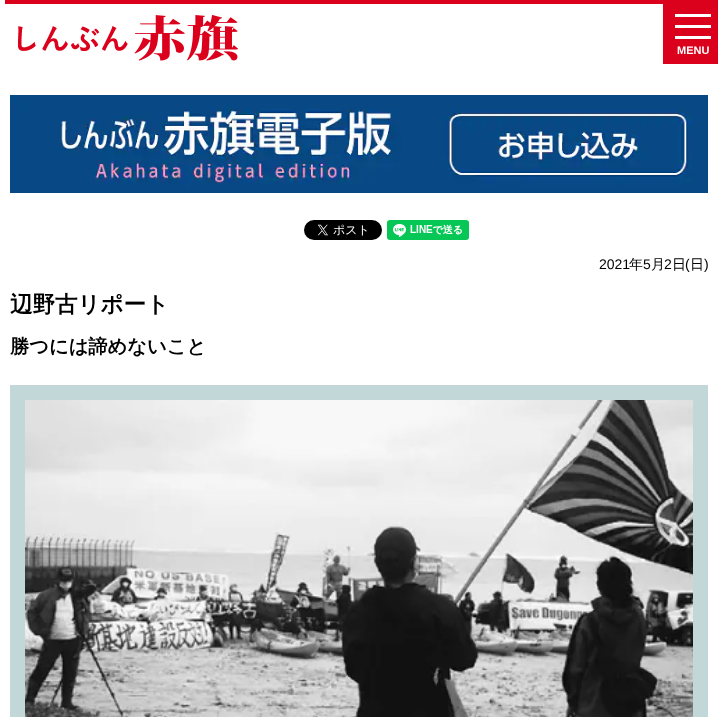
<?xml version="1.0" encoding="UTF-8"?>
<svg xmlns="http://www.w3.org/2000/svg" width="718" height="717">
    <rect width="100%" height="100%" fill="#FFFFFF"/>
    <rect x="5" y="0" width="713" height="4" fill="#DB001C"/>
    <image x="18" y="15" width="220" height="46" href="img_01.png"/>
    <rect x="663" y="4" width="55" height="60" fill="#DB001C"/>
    <rect x="675" y="14" width="36" height="3" fill="#FFFFFF"/>
    <rect x="675" y="25" width="36" height="3" fill="#FFFFFF"/>
    <rect x="675" y="36" width="36" height="3" fill="#FFFFFF"/>
    <text x="677" y="54" font-family="Liberation Sans" font-size="11" font-weight="700" fill="#FFFFFF">MENU</text>
    <image x="10" y="95" width="698" height="98" href="img_02.png"/>
    <image x="304" y="220" width="78" height="20" href="img_03.png"/>
    <image x="387" y="220" width="82" height="20" href="img_04.png"/>
    <text x="599" y="269" font-family="Liberation Sans" font-size="14" fill="#000000">2021</text>
    <text x="629" y="269" font-family="WenQuanYi Zen Hei" font-size="14" font-weight="500" fill="#000000">年</text>
    <text x="643" y="269" font-family="Liberation Sans" font-size="14" fill="#000000">5</text>
    <text x="651" y="269" font-family="WenQuanYi Zen Hei" font-size="14" font-weight="500" fill="#000000">月</text>
    <text x="664" y="269" font-family="Liberation Sans" font-size="14" fill="#000000">2</text>
    <text x="672" y="269" font-family="WenQuanYi Zen Hei" font-size="14" font-weight="500" fill="#000000">日</text>
    <text x="685" y="269" font-family="Liberation Sans" font-size="14" fill="#000000">(</text>
    <text x="690" y="269" font-family="WenQuanYi Zen Hei" font-size="14" font-weight="500" fill="#000000">日</text>
    <text x="704" y="269" font-family="Liberation Sans" font-size="14" fill="#000000">)</text>
    <text x="10" y="312" font-family="WenQuanYi Zen Hei" font-size="22.5" font-weight="700" fill="#000000">辺野古リポート</text>
    <text x="10" y="353" font-family="WenQuanYi Zen Hei" font-size="19.25" font-weight="700" fill="#000000">勝つには諦めないこと</text>
    <rect x="10" y="385" width="698" height="332" fill="#C2D7D7"/>
    <image x="25" y="400" width="668" height="317" href="img_05.png"/>
</svg>
